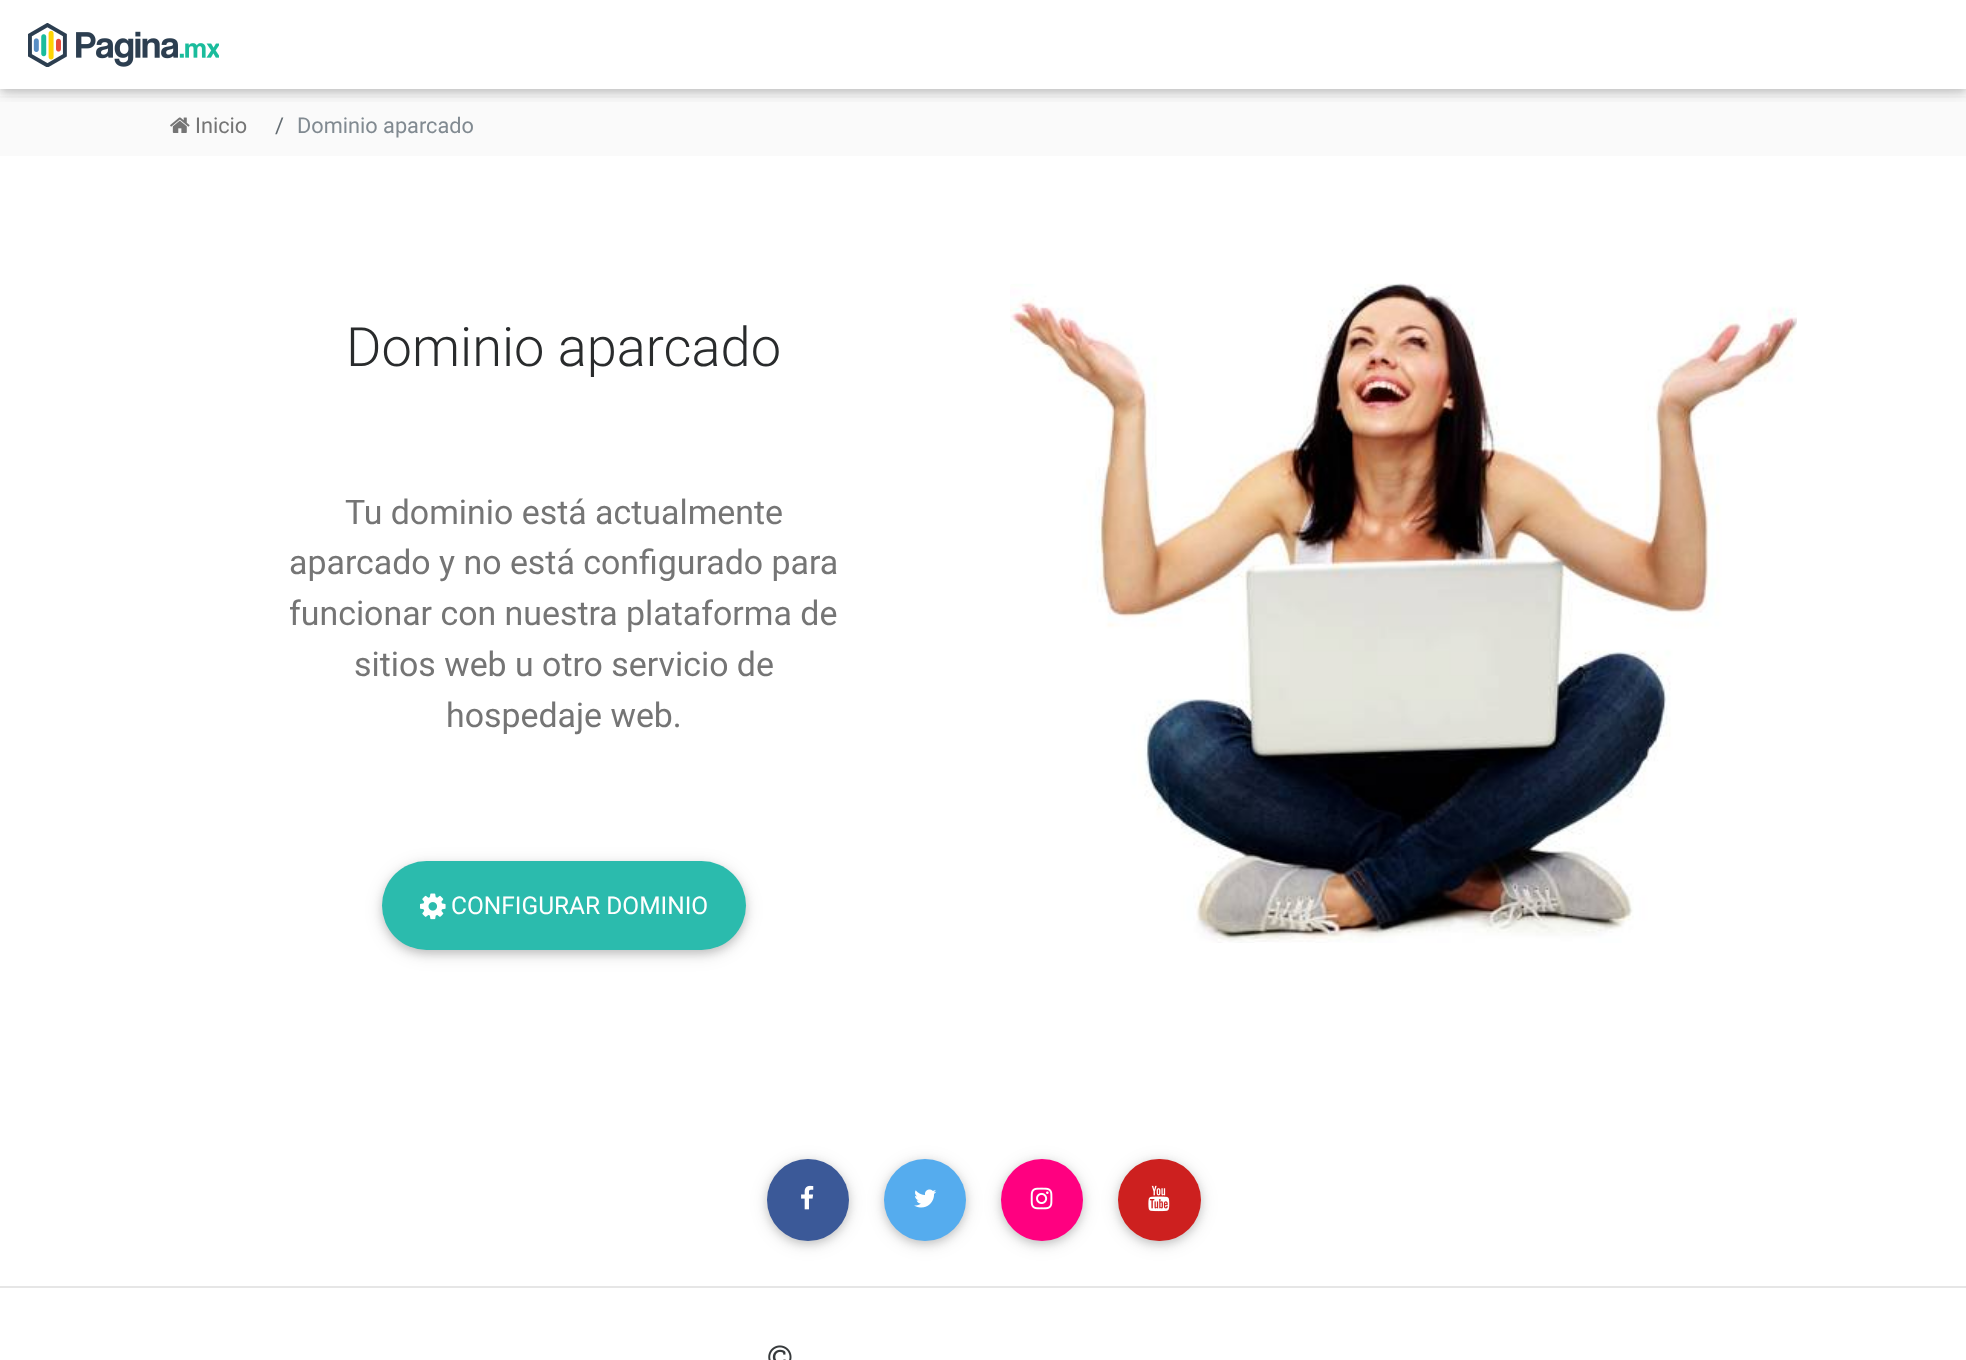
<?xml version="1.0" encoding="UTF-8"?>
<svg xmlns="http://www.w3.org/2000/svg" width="1966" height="1360">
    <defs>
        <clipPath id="clip1"><rect x="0" y="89" width="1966" height="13"/></clipPath>
        <filter id="blur1" x="-50%" y="-200%" width="200%" height="500%"><feGaussianBlur stdDeviation="9"/></filter>
        <clipPath id="clip2"><rect x="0" y="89" width="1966" height="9"/></clipPath>
        <filter id="blur2" x="-50%" y="-200%" width="200%" height="500%"><feGaussianBlur stdDeviation="4.5"/></filter>
    </defs>
    <rect width="100%" height="100%" fill="#FFFFFF"/>
    <rect x="0" y="96" width="1966" height="60" fill="#FAFAFA"/>
    <image x="170" y="117" width="20" height="16" href="img_02.png"/>
    <g clip-path="url(#clip1)">
        <rect x="0" y="4" width="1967" height="89" fill="#000000" fill-opacity="0.12" filter="url(#blur1)"/>
    </g>
    <g clip-path="url(#clip2)">
        <rect x="0" y="4" width="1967" height="89" fill="#000000" fill-opacity="0.16" filter="url(#blur2)"/>
    </g>
    <image x="28" y="23" width="191" height="44" href="img_01.png"/>
    <text x="195" y="133" font-family="Roboto" font-size="21.75" fill="#757575">Inicio</text>
    <text x="275" y="133" font-family="Roboto" font-size="21.75" fill="#636C72">/</text>
    <text x="297" y="133" font-family="Roboto" font-size="21.75" fill="#818A91">Dominio aparcado</text>
    <text x="346" y="366" font-family="Roboto" font-size="54.25" font-weight="300" fill="#292B2C">Dominio aparcado</text>
    <text x="345" y="524" font-family="Roboto" font-size="33.9" fill="#757575">Tu dominio está actualmente</text>
    <text font-family="Roboto" font-size="33.9" fill="#757575">
        <tspan x="289" y="574">aparcado y no está configurado para</tspan>
        <tspan x="289" y="625">funcionar con nuestra plataforma de</tspan>
    </text>
    <text x="354" y="676" font-family="Roboto" font-size="33.9" fill="#757575">sitios web u otro servicio de</text>
    <text x="446" y="727" font-family="Roboto" font-size="33.9" fill="#757575">hospedaje web.</text>
    <rect x="382" y="865" width="364" height="89" rx="44.5" fill="#000000" fill-opacity="0.12" filter="url(#blur1)"/>
    <rect x="382" y="865" width="364" height="89" rx="44.5" fill="#000000" fill-opacity="0.16" filter="url(#blur2)"/>
    <rect x="382" y="861" width="364" height="89" rx="44.5" fill="#2BBBAD"/>
    <image x="420" y="893" width="26" height="27" href="img_03.png"/>
    <text x="451" y="914" font-family="Roboto" font-size="24.5" fill="#FFFFFF">CONFIGURAR DOMINIO</text>
    <image x="1010" y="283" width="787" height="660" href="img_04.png"/>
    <rect x="767" y="1162" width="82" height="82" rx="41" fill="#000000" fill-opacity="0.12" filter="url(#blur1)"/>
    <rect x="767" y="1162" width="82" height="82" rx="41" fill="#000000" fill-opacity="0.16" filter="url(#blur2)"/>
    <circle cx="808" cy="1200" r="41" fill="#3B5998"/>
    <image x="801" y="1185" width="13" height="25" href="img_05.png"/>
    <rect x="884" y="1162" width="82" height="82" rx="41" fill="#000000" fill-opacity="0.12" filter="url(#blur1)"/>
    <rect x="884" y="1162" width="82" height="82" rx="41" fill="#000000" fill-opacity="0.16" filter="url(#blur2)"/>
    <circle cx="925" cy="1200" r="41" fill="#55ACEE"/>
    <image x="914" y="1189" width="23" height="19" href="img_06.png"/>
    <rect x="1001" y="1162" width="82" height="82" rx="41" fill="#000000" fill-opacity="0.12" filter="url(#blur1)"/>
    <rect x="1001" y="1162" width="82" height="82" rx="41" fill="#000000" fill-opacity="0.16" filter="url(#blur2)"/>
    <circle cx="1042" cy="1200" r="41" fill="#FF0080"/>
    <image x="1030" y="1187" width="23" height="23" href="img_07.png"/>
    <rect x="1118" y="1162" width="83" height="82" rx="41" fill="#000000" fill-opacity="0.12" filter="url(#blur1)"/>
    <rect x="1118" y="1162" width="83" height="82" rx="41" fill="#000000" fill-opacity="0.16" filter="url(#blur2)"/>
    <rect x="1118" y="1159" width="83" height="82" rx="41" fill="#CD201F"/>
    <image x="1148" y="1185" width="22" height="27" href="img_08.png"/>
    <rect x="0" y="1286" width="1966" height="2" fill="#E6E6E6"/>
    <image x="768" y="1345" width="24" height="15" href="img_09.png"/>
</svg>
